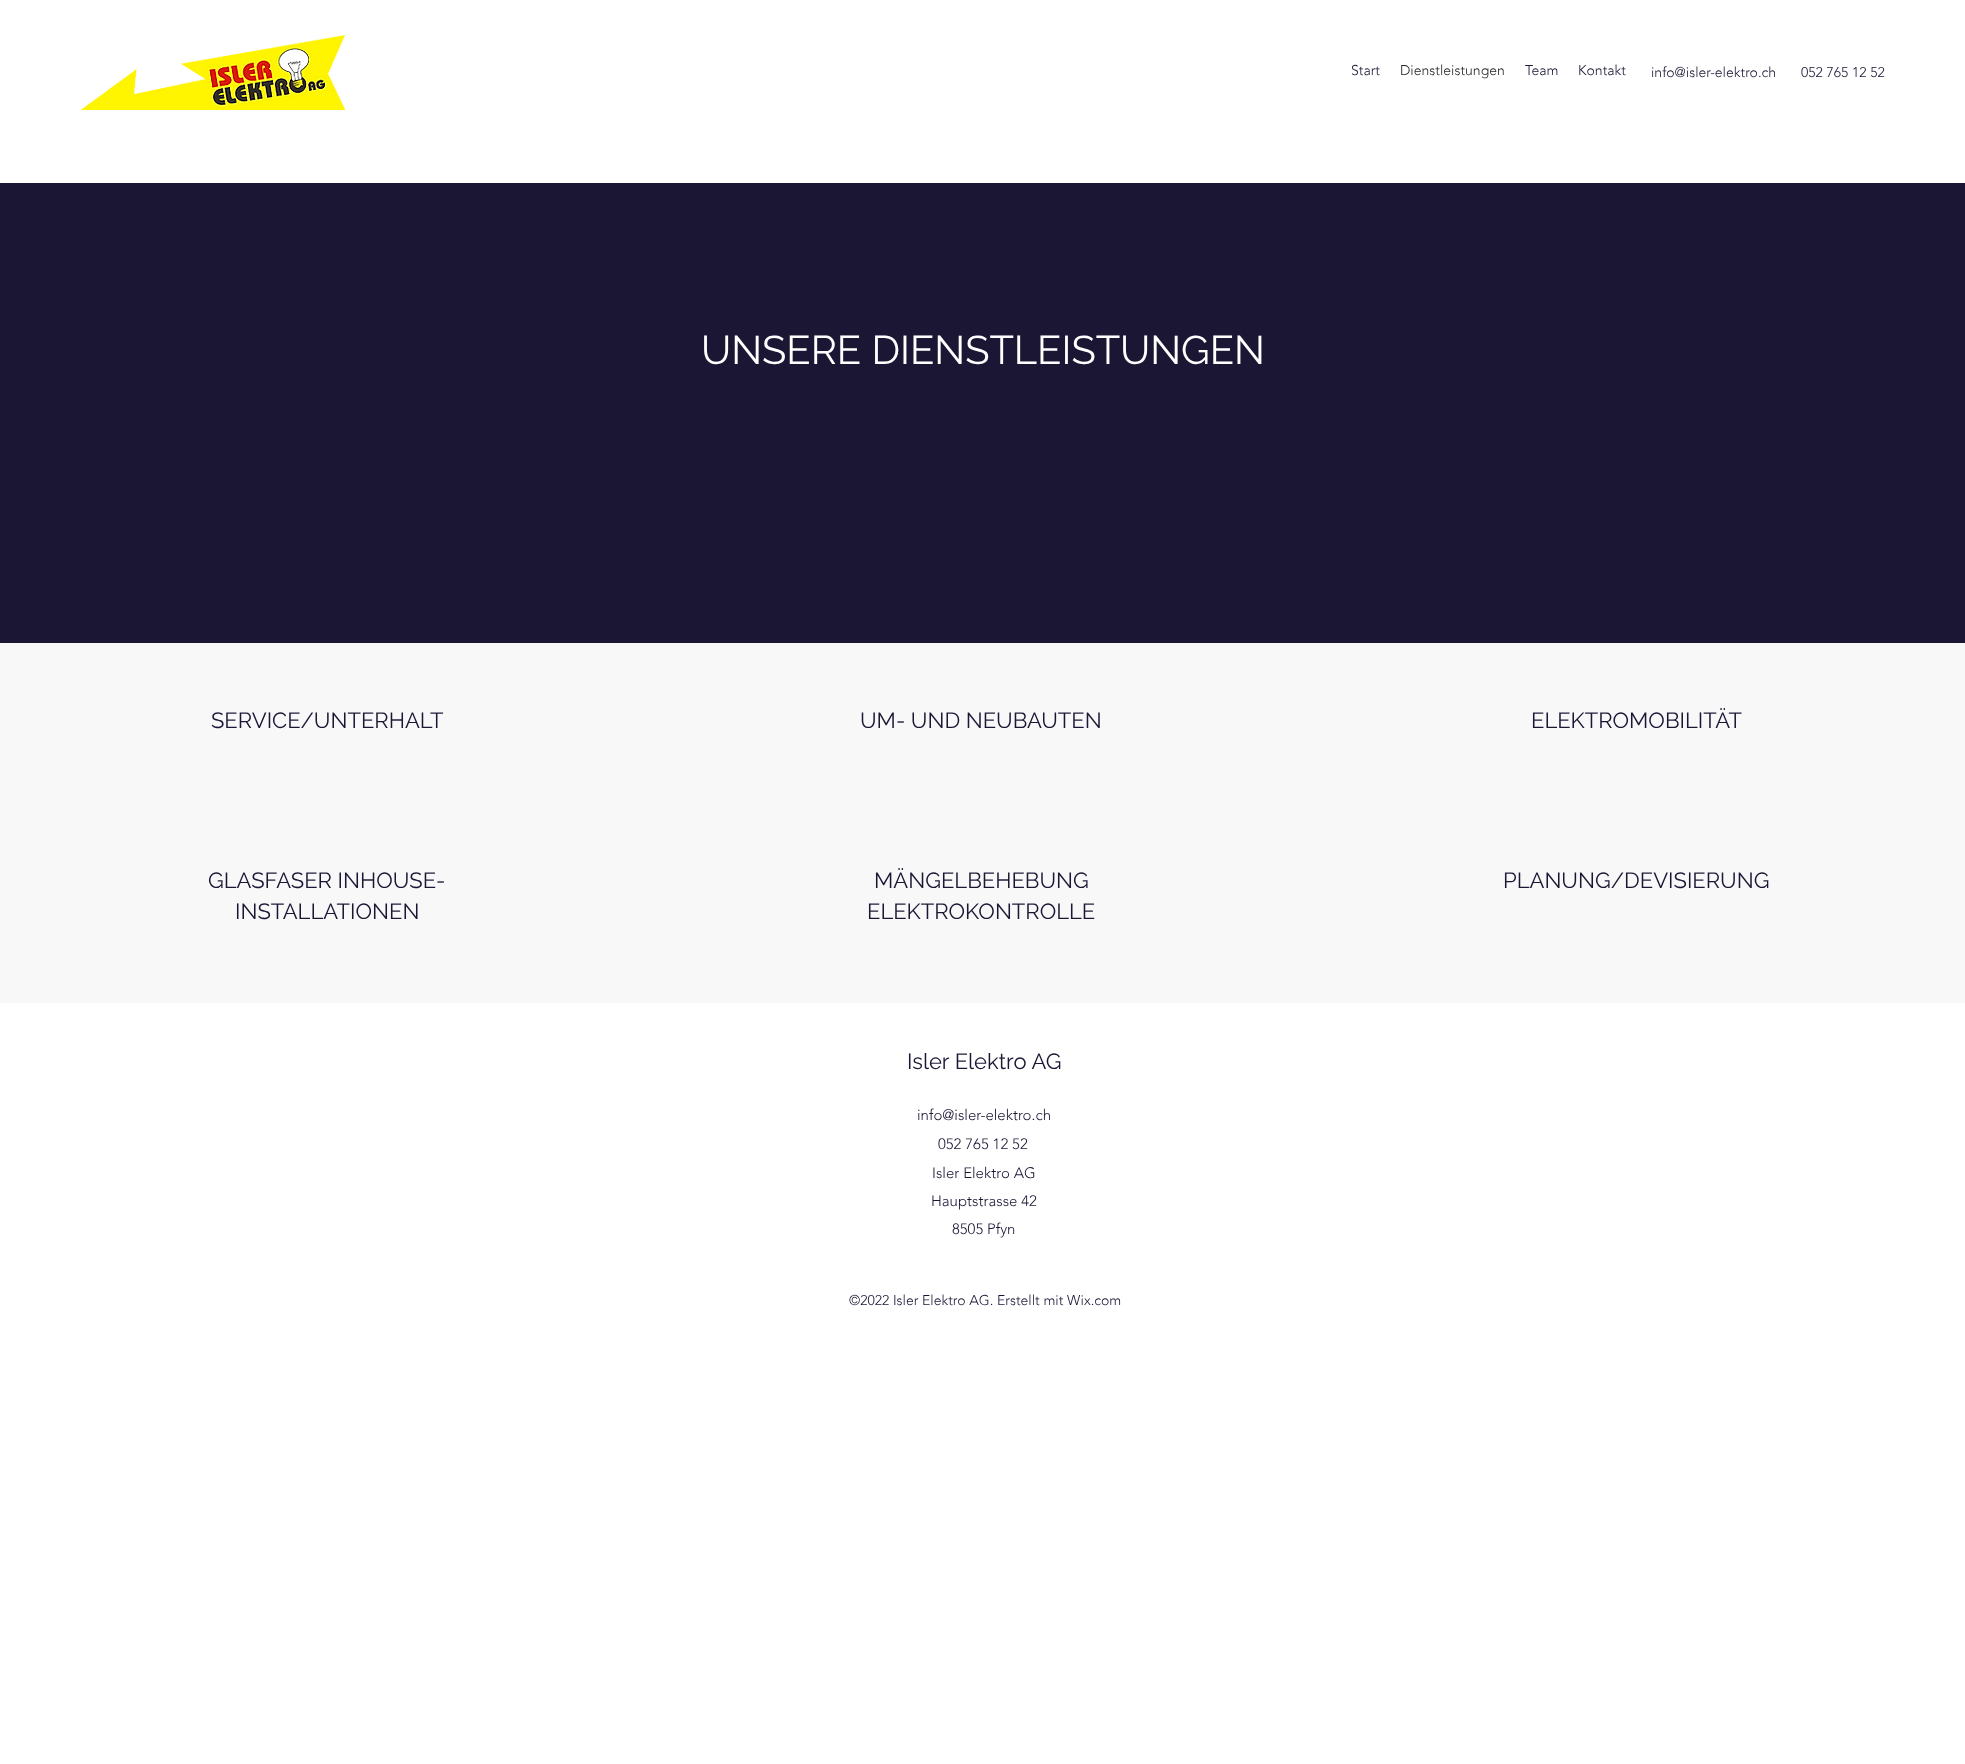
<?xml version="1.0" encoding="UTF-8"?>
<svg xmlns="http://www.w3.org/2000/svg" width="1965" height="1764">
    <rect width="100%" height="100%" fill="#FFFFFF"/>
    <image x="81" y="35" width="264" height="75" href="img_01.png"/>
    <text x="1351" y="75" font-family="'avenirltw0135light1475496'" font-size="14" font-weight="300" fill="#1B1634">Start</text>
    <text x="1400" y="75" font-family="'avenirltw0135light1475496'" font-size="14" font-weight="300" fill="#2B252B">Dienstleistungen</text>
    <text x="1525" y="75" font-family="'avenirltw0135light1475496'" font-size="14" font-weight="300" fill="#1B1634">Team</text>
    <text x="1578" y="75" font-family="'avenirltw0135light1475496'" font-size="14" font-weight="300" fill="#1B1634">Kontakt</text>
    <text x="1651" y="77" font-family="'avenirltw0135light1475496'" font-size="14" font-weight="300" fill="#1B1634">info@isler-elektro.ch</text>
    <text x="1801" y="77" font-family="'avenirltw0135light1475496'" font-size="14" font-weight="300" fill="#1B1634">052 765 12 52</text>
    <rect x="0" y="183" width="1965" height="460" fill="#1B1634"/>
    <text x="701" y="364" font-family="Raleway" font-size="40" fill="#FFFFFF">UNSERE DIENSTLEISTUNGEN</text>
    <rect x="0" y="643" width="1965" height="160" fill="#F8F8F9"/>
    <text x="211" y="728" font-family="Raleway" font-size="22" fill="#1B1634">SERVICE/UNTERHALT</text>
    <text x="860" y="728" font-family="Raleway" font-size="22" fill="#1B1634">UM- UND NEUBAUTEN</text>
    <text x="1531" y="728" font-family="Raleway" font-size="22" fill="#1B1634">ELEKTROMOBILITÄT</text>
    <rect x="0" y="803" width="1965" height="200" fill="#F8F8F9"/>
    <text x="208" y="888" font-family="Raleway" font-size="22" fill="#1B1634">GLASFASER INHOUSE-</text>
    <text x="235" y="919" font-family="Raleway" font-size="22" fill="#1B1634">INSTALLATIONEN</text>
    <text x="874" y="888" font-family="Raleway" font-size="22" fill="#1B1634">MÄNGELBEHEBUNG</text>
    <text x="867" y="919" font-family="Raleway" font-size="22" fill="#1B1634">ELEKTROKONTROLLE</text>
    <text x="1503" y="888" font-family="Raleway" font-size="22" fill="#1B1634">PLANUNG/DEVISIERUNG</text>
    <text x="907" y="1069" font-family="Raleway" font-size="22" fill="#1B1634">Isler Elektro AG</text>
    <text x="917" y="1120" font-family="'avenirltw0135light1475496'" font-size="15" font-weight="300" fill="#1B1634">info@isler-elektro.ch</text>
    <text x="938" y="1149" font-family="'avenirltw0135light1475496'" font-size="15" font-weight="300" fill="#1B1634">052 765 12 52</text>
    <text x="932" y="1178" font-family="'avenirltw0135light1475496'" font-size="15" font-weight="300" fill="#1B1634">Isler Elektro AG</text>
    <text x="931" y="1206" font-family="'avenirltw0135light1475496'" font-size="15" font-weight="300" fill="#1B1634">Hauptstrasse 42</text>
    <text x="952" y="1234" font-family="'avenirltw0135light1475496'" font-size="15" font-weight="300" fill="#1B1634">8505 Pfyn</text>
    <text x="849" y="1305" font-family="'avenirltw0135light1475496'" font-size="14" font-weight="300" fill="#1B1634">©2022 Isler Elektro AG. Erstellt mit Wix.com</text>
</svg>
